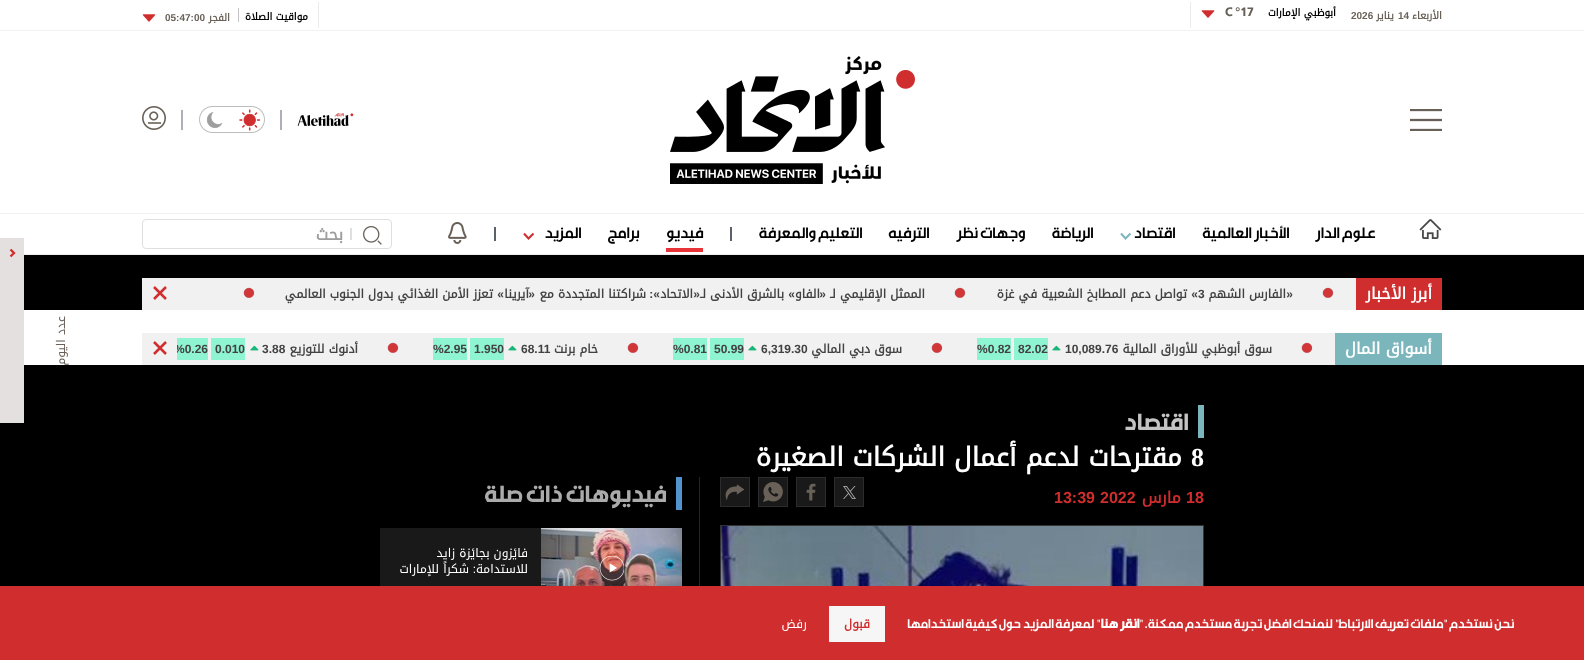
<?xml version="1.0" encoding="UTF-8"?>
<svg xmlns="http://www.w3.org/2000/svg" width="1584" height="660">
    <rect width="100%" height="100%" fill="#FFFFFF"/>
    <rect x="0" y="30" width="1584" height="1" fill="#F2F2F2"/>
    <text x="1442" y="19" font-family="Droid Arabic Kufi" font-size="10" font-weight="700" direction="rtl" fill="#696158">الأربعاء</text>
    <text x="1398" y="19" font-family="Liberation Sans" font-size="10" font-weight="700" fill="#696158">14</text>
    <text x="1394" y="19" font-family="Droid Arabic Kufi" font-size="10" font-weight="700" direction="rtl" fill="#696158">يناير</text>
    <text x="1351" y="19" font-family="Liberation Sans" font-size="10" font-weight="700" fill="#696158">2026</text>
    <text x="1336" y="16" font-family="Droid Arabic Kufi" font-size="10" font-weight="700" direction="rtl" fill="#000000">أبوظبي الإمارات</text>
    <text x="1225" y="16" font-family="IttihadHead" font-size="16" fill="#696158">C °17</text>
    <image x="1201" y="10" width="14" height="8" href="img_01.png"/>
    <rect x="1190" y="2" width="1" height="26" fill="#EBEBEB"/>
    <rect x="318" y="2" width="1" height="26" fill="#EBEBEB"/>
    <text x="308" y="20" font-family="Droid Arabic Kufi" font-size="10" font-weight="700" direction="rtl" fill="#000000">مواقيت الصلاة</text>
    <rect x="238" y="8" width="1" height="14" fill="#C4C4C4"/>
    <text x="230" y="21" font-family="Droid Arabic Kufi" font-size="10" font-weight="700" direction="rtl" fill="#696158">الفجر</text>
    <text x="165" y="21" font-family="Liberation Sans" font-size="10" font-weight="700" fill="#696158">05:47:00</text>
    <image x="142" y="14" width="14" height="8" href="img_02.png"/>
    <image x="1410" y="109" width="32" height="22" href="img_03.png"/>
    <image x="670" y="56" width="245" height="128" href="img_04.png"/>
    <image x="297" y="113" width="57" height="13" href="img_05.png"/>
    <rect x="280" y="110" width="2" height="20" fill="#ADB0B4"/>
    <image x="199" y="106" width="66" height="27" href="img_06.png"/>
    <rect x="181" y="110" width="2" height="20" fill="#ADB0B4"/>
    <image x="142" y="106" width="24" height="24" href="img_07.png"/>
    <rect x="0" y="213" width="1584" height="1" fill="#F2F2F2"/>
    <rect x="24" y="254" width="1560" height="1" fill="#EDEDED"/>
    <image x="1419" y="219" width="23" height="20" href="img_08.png"/>
    <text x="1375" y="238" font-family="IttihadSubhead" font-size="18" direction="rtl" fill="#000000">علوم الدار</text>
    <text x="1289" y="238" font-family="IttihadSubhead" font-size="18" direction="rtl" fill="#000000">الأخبار العالمية</text>
    <text x="1175" y="238" font-family="IttihadSubhead" font-size="18" direction="rtl" fill="#000000">اقتصاد</text>
    <path d="M 1121 233.5 L 1125.5 238.5 L 1130.5 233.5" fill="none" stroke="#7CB6BD" stroke-width="2"/>
    <text x="1093" y="238" font-family="IttihadSubhead" font-size="18" direction="rtl" fill="#000000">الرياضة</text>
    <text x="1025" y="238" font-family="IttihadSubhead" font-size="18" direction="rtl" fill="#000000">وجهات نظر</text>
    <text x="929" y="238" font-family="IttihadSubhead" font-size="18" direction="rtl" fill="#000000">الترفيه</text>
    <text x="862" y="238" font-family="IttihadSubhead" font-size="18" direction="rtl" fill="#000000">التعليم والمعرفة</text>
    <rect x="730" y="227" width="2" height="14" fill="#5B6069"/>
    <text x="703" y="238" font-family="IttihadSubhead" font-size="18" direction="rtl" fill="#000000">فيديو</text>
    <rect x="666" y="248" width="37" height="4" fill="#E83438"/>
    <text x="639" y="238" font-family="IttihadSubhead" font-size="18" direction="rtl" fill="#000000">برامج</text>
    <text x="581" y="238" font-family="IttihadSubhead" font-size="18" direction="rtl" fill="#000000">المزيد</text>
    <path d="M 524 233.5 L 528.5 238.5 L 533.5 233.5" fill="none" stroke="#D02D2E" stroke-width="2"/>
    <rect x="494" y="227" width="2" height="14" fill="#5B6069"/>
    <image x="448" y="222" width="19" height="22" href="img_09.png"/>
    <rect x="142.5" y="219.5" width="249" height="29" rx="3.5" fill="none" stroke="#DFDFDF"/>
    <image x="363" y="226" width="19" height="19" href="img_10.png"/>
    <rect x="350" y="228" width="2" height="12" fill="#DFDFDF"/>
    <text x="343" y="240" font-family="Droid Arabic Kufi" font-size="16" font-weight="700" letter-spacing="-1" direction="rtl" fill="#9D9D9D">بحث</text>
    <rect x="24" y="255" width="1560" height="55" fill="#000000"/>
    <rect x="142" y="278" width="1214" height="32" fill="#F1F1F1"/>
    <rect x="1356" y="278" width="86" height="32" fill="#D02D2E"/>
    <text x="1432" y="299" font-family="Droid Arabic Kufi" font-size="16" font-weight="700" direction="rtl" fill="#FFFFFF">أبرز الأخبار</text>
    <image x="1322" y="287" width="12" height="11" href="img_11.png"/>
    <text x="1293" y="298" font-family="Liberation Sans" font-size="12" font-weight="700" direction="rtl" fill="#424242">«</text>
    <text x="1286" y="298" font-family="Droid Arabic Kufi" font-size="12" font-weight="700" direction="rtl" fill="#424242">الفارس الشهم</text>
    <text x="1198" y="298" font-family="Liberation Sans" font-size="12" font-weight="700" fill="#424242">3</text>
    <text x="1198" y="298" font-family="Liberation Sans" font-size="12" font-weight="700" direction="rtl" fill="#424242">»</text>
    <text x="1187" y="298" font-family="Droid Arabic Kufi" font-size="12" font-weight="700" direction="rtl" fill="#424242">تواصل دعم المطابخ الشعبية في غزة</text>
    <image x="954" y="287" width="12" height="11" href="img_11.png"/>
    <text x="925" y="298" font-family="Droid Arabic Kufi" font-size="12" font-weight="700" direction="rtl" fill="#424242">الممثل الإقليمي لـ</text>
    <text x="826" y="298" font-family="Liberation Sans" font-size="12" font-weight="700" direction="rtl" fill="#424242">«</text>
    <text x="820" y="298" font-family="Droid Arabic Kufi" font-size="12" font-weight="700" direction="rtl" fill="#424242">الفاو</text>
    <text x="795" y="298" font-family="Liberation Sans" font-size="12" font-weight="700" direction="rtl" fill="#424242">»</text>
    <text x="700" y="298" font-family="Liberation Sans" font-size="12" font-weight="700" direction="rtl" fill="#424242">«</text>
    <text x="784" y="298" font-family="Droid Arabic Kufi" font-size="12" font-weight="700" direction="rtl" fill="#424242">بالشرق الأدنى لـ</text>
    <text x="693" y="298" font-family="Droid Arabic Kufi" font-size="12" font-weight="700" direction="rtl" fill="#424242">الاتحاد</text>
    <text x="660" y="298" font-family="Liberation Sans" font-size="12" font-weight="700" direction="rtl" fill="#424242">»:</text>
    <text x="646" y="298" font-family="Droid Arabic Kufi" font-size="12" font-weight="700" direction="rtl" fill="#424242">شراكتنا المتجددة مع</text>
    <text x="535" y="298" font-family="Liberation Sans" font-size="12" font-weight="700" direction="rtl" fill="#424242">«</text>
    <text x="529" y="298" font-family="Droid Arabic Kufi" font-size="12" font-weight="700" direction="rtl" fill="#424242">آيرينا</text>
    <text x="504" y="298" font-family="Liberation Sans" font-size="12" font-weight="700" direction="rtl" fill="#424242">»</text>
    <text x="493" y="298" font-family="Droid Arabic Kufi" font-size="12" font-weight="700" direction="rtl" fill="#424242">تعزز الأمن الغذائي بدول الجنوب العالمي</text>
    <image x="243" y="287" width="12" height="11" href="img_11.png"/>
    <path d="M 154 287 L 166 299 M 154 299 L 166 287" fill="none" stroke="#D02D2E" stroke-width="2.5"/>
    <rect x="0" y="365" width="1584" height="221" fill="#000000"/>
    <rect x="0" y="238" width="24" height="185" fill="#E4E0E0"/>
    <path d="M 10.5 249.5 L 14 253 L 10.5 256.5" fill="none" stroke="#D02D2E" stroke-width="2.3"/>
    <text x="65" y="316" transform="rotate(-90 65 316)" font-family="Droid Arabic Kufi" font-size="12" direction="rtl" fill="#696158">عدد اليوم</text>
    <rect x="142" y="333" width="1193" height="32" fill="#F1F1F1"/>
    <rect x="1335" y="333" width="107" height="32" fill="#7CB6BD"/>
    <text x="1432" y="354" font-family="Droid Arabic Kufi" font-size="16" font-weight="700" direction="rtl" fill="#FFFFFF">أسواق المال</text>
    <image x="1301" y="342" width="12" height="11" href="img_11.png"/>
    <text x="1272" y="353" font-family="Droid Arabic Kufi" font-size="12" font-weight="700" direction="rtl" fill="#424242">سوق أبوظبي للأوراق المالية</text>
    <text x="1065" y="353" font-family="Liberation Sans" font-size="12" font-weight="700" fill="#424242">10,089.76</text>
    <image x="1052" y="345" width="9" height="6" href="img_12.png"/>
    <rect x="1014" y="338" width="34" height="22" fill="#8EF4D2"/>
    <text x="1018" y="353" font-family="Liberation Sans" font-size="12" font-weight="700" fill="#424242">82.02</text>
    <rect x="977" y="338" width="34" height="22" fill="#8EF4D2"/>
    <text x="977" y="353" font-family="Liberation Sans" font-size="12" font-weight="700" fill="#424242">%0.82</text>
    <image x="931" y="342" width="12" height="11" href="img_11.png"/>
    <text x="902" y="353" font-family="Droid Arabic Kufi" font-size="12" font-weight="700" direction="rtl" fill="#424242">سوق دبي المالي</text>
    <text x="761" y="353" font-family="Liberation Sans" font-size="12" font-weight="700" fill="#424242">6,319.30</text>
    <image x="748" y="345" width="9" height="6" href="img_12.png"/>
    <rect x="710" y="338" width="34" height="22" fill="#8EF4D2"/>
    <text x="714" y="353" font-family="Liberation Sans" font-size="12" font-weight="700" fill="#424242">50.99</text>
    <rect x="673" y="338" width="34" height="22" fill="#8EF4D2"/>
    <text x="673" y="353" font-family="Liberation Sans" font-size="12" font-weight="700" fill="#424242">%0.81</text>
    <image x="627" y="342" width="12" height="11" href="img_11.png"/>
    <text x="598" y="353" font-family="Droid Arabic Kufi" font-size="12" font-weight="700" direction="rtl" fill="#424242">خام برنت</text>
    <text x="521" y="353" font-family="Liberation Sans" font-size="12" font-weight="700" fill="#424242">68.11</text>
    <image x="508" y="345" width="9" height="6" href="img_12.png"/>
    <rect x="470" y="338" width="34" height="22" fill="#8EF4D2"/>
    <text x="474" y="353" font-family="Liberation Sans" font-size="12" font-weight="700" fill="#424242">1.950</text>
    <rect x="433" y="338" width="34" height="22" fill="#8EF4D2"/>
    <text x="433" y="353" font-family="Liberation Sans" font-size="12" font-weight="700" fill="#424242">%2.95</text>
    <image x="387" y="342" width="12" height="11" href="img_11.png"/>
    <text x="358" y="353" font-family="Droid Arabic Kufi" font-size="12" font-weight="700" direction="rtl" fill="#424242">أدنوك للتوزيع</text>
    <text x="262" y="353" font-family="Liberation Sans" font-size="12" font-weight="700" fill="#424242">3.88</text>
    <image x="250" y="345" width="9" height="6" href="img_12.png"/>
    <rect x="211" y="338" width="34" height="22" fill="#8EF4D2"/>
    <text x="215" y="353" font-family="Liberation Sans" font-size="12" font-weight="700" fill="#424242">0.010</text>
    <rect x="177" y="338" width="31" height="22" fill="#8EF4D2"/>
    <text x="174" y="353" font-family="Liberation Sans" font-size="12" font-weight="700" fill="#424242">%0.26</text>
    <rect x="174" y="344" width="3" height="9" fill="#F1F1F1"/>
    <path d="M 154 342 L 166 354 M 154 354 L 166 342" fill="none" stroke="#D02D2E" stroke-width="2.5"/>
    <rect x="1198" y="405" width="6" height="33" fill="#7CB6BD"/>
    <text x="1188" y="430" font-family="IttihadHead" font-size="28" direction="rtl" fill="#C4C4C4">اقتصاد</text>
    <text x="1191" y="466" font-family="Liberation Serif" font-size="26" font-weight="700" fill="#FFFFFF">8</text>
    <text x="1182" y="466" font-family="Droid Arabic Kufi" font-size="26" font-weight="700" direction="rtl" fill="#FFFFFF">مقترحات لدعم أعمال الشركات الصغيرة</text>
    <rect x="699" y="477" width="1" height="109" fill="#242424"/>
    <text x="1186" y="503" font-family="Liberation Sans" font-size="16" font-weight="700" fill="#D02D2E">18</text>
    <text x="1181" y="503" font-family="Droid Arabic Kufi" font-size="16" font-weight="700" direction="rtl" fill="#D02D2E">مارس</text>
    <text x="1100" y="503" font-family="Liberation Sans" font-size="16" font-weight="700" fill="#D02D2E">2022</text>
    <text x="1054" y="503" font-family="Liberation Sans" font-size="16" font-weight="700" fill="#D02D2E">13:39</text>
    <rect x="834.5" y="477.5" width="29" height="29" fill="#191919" stroke="#2C2C2C"/>
    <image x="843" y="486" width="13" height="13" href="img_13.png"/>
    <rect x="796.5" y="477.5" width="29" height="29" fill="#191919" stroke="#2C2C2C"/>
    <image x="806" y="483" width="10" height="18" href="img_14.png"/>
    <rect x="758.5" y="477.5" width="29" height="29" fill="#191919" stroke="#2C2C2C"/>
    <image x="763" y="482" width="20" height="20" href="img_15.png"/>
    <rect x="720.5" y="477.5" width="29" height="29" fill="#191919" stroke="#2C2C2C"/>
    <image x="725" y="484" width="20" height="16" href="img_16.png"/>
    <rect x="720.5" y="525.5" width="483" height="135" fill="none" stroke="#333333"/>
    <image x="721" y="526" width="482" height="60" href="img_17.png"/>
    <rect x="676" y="477" width="6" height="33" fill="#5194CE"/>
    <text x="666" y="502" font-family="IttihadHead" font-size="28" direction="rtl" fill="#ABABAB">فيديوهات ذات صلة</text>
    <image x="541" y="528" width="141" height="58" href="img_18.png"/>
    <image x="599" y="556" width="25" height="25" href="img_19.png"/>
    <rect x="380" y="528" width="161" height="58" fill="#191919"/>
    <text font-family="Droid Arabic Kufi" font-size="12" direction="rtl" fill="#FFFFFF">
        <tspan x="528" y="557">فائزون بجائزة زايد</tspan>
        <tspan x="528" y="573">للاستدامة</tspan>
    </text>
    <text x="476" y="573" font-family="Liberation Sans" font-size="12" direction="rtl" fill="#FFFFFF">:</text>
    <text x="469" y="573" font-family="Droid Arabic Kufi" font-size="12" direction="rtl" fill="#FFFFFF">شكراً للإمارات</text>
    <rect x="0" y="586" width="1584" height="74" fill="#D02D2E"/>
    <text x="1514" y="628" font-family="IttihadSubhead" font-size="15" direction="rtl" fill="#FFFFFF">نحن نستخدم "ملفات تعريف الارتباط" لنمنحك افضل تجربة مستخدم ممكنة. "</text>
    <text x="1139" y="628" font-family="IttihadSubhead" font-size="15" font-weight="700" direction="rtl" fill="#FFFFFF">انقر هنا</text>
    <text x="1100" y="628" font-family="IttihadSubhead" font-size="15" direction="rtl" fill="#FFFFFF">" لمعرفة المزيد حول كيفية استخدامها</text>
    <rect x="829" y="606" width="56" height="36" fill="#F6F6F6"/>
    <text x="870" y="628" font-family="Droid Arabic Kufi" font-size="12" font-weight="700" direction="rtl" fill="#D02D2E">قبول</text>
    <text x="807" y="628" font-family="Droid Arabic Kufi" font-size="12" direction="rtl" fill="#FFFFFF">رفض</text>
</svg>
